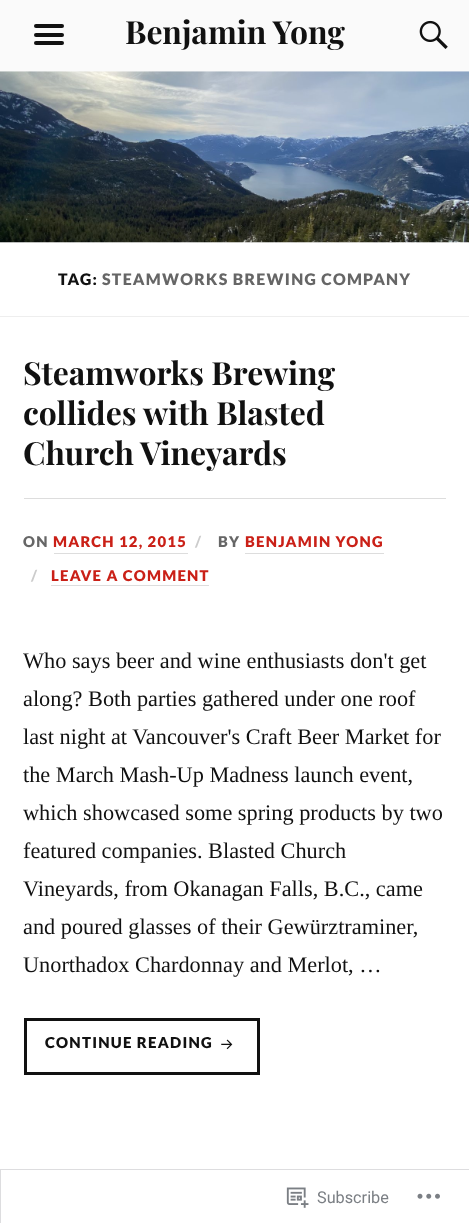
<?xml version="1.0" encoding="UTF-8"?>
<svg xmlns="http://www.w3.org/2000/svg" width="469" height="1223">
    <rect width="100%" height="100%" fill="#FAFAFA"/>
    <rect x="1" y="1176" width="468" height="47" fill="#FFFFFF"/>
    <text x="125" y="44" font-family="Playfair Display" font-size="31.9" font-weight="700" fill="#111111">Benjamin Yong</text>
    <rect x="34" y="24" width="30" height="4" rx="2" fill="#111111"/>
    <rect x="34" y="33" width="30" height="4" rx="2" fill="#111111"/>
    <rect x="34" y="41" width="30" height="4" rx="2" fill="#111111"/>
    <image x="419" y="20" width="29" height="29" href="img_01.png"/>
    <image x="0" y="71" width="469" height="172" href="img_02.png"/>
    <rect x="0" y="243" width="469" height="926" fill="#FFFFFF"/>
    <rect x="0" y="316" width="469" height="1" fill="#EEEEEE"/>
    <text x="58" y="285" font-family="Lato" font-size="15.9" font-weight="900" letter-spacing="1.25" fill="#111111">TAG:</text>
    <text x="102" y="285" font-family="Lato" font-size="15.9" font-weight="900" letter-spacing="1.25" fill="#666666">STEAMWORKS BREWING COMPANY</text>
    <rect x="0" y="1170" width="469" height="6" fill="#FFFFFF"/>
    <text font-family="Playfair Display" font-size="31.9" font-weight="700" fill="#111111">
        <tspan x="23" y="385">Steamworks Brewing</tspan>
        <tspan x="23" y="425">collides with Blasted</tspan>
        <tspan x="23" y="465">Church Vineyards</tspan>
    </text>
    <rect x="24" y="498" width="422" height="1" fill="#DDDDDD"/>
    <text x="23" y="547" font-family="Lato" font-size="14.9" font-weight="900" letter-spacing="1.25" fill="#666666">ON</text>
    <text x="53" y="547" font-family="Lato" font-size="14.9" font-weight="900" letter-spacing="1.25" fill="#CA2017">MARCH 12, 2015</text>
    <rect x="54" y="553" width="134" height="1" fill="#DDDDDD"/>
    <text x="195" y="547" font-family="Lato" font-size="14.9" font-weight="900" letter-spacing="1.25" fill="#CCCCCC">/</text>
    <text x="218" y="547" font-family="Lato" font-size="14.9" font-weight="900" letter-spacing="1.25" fill="#666666">BY</text>
    <text x="245" y="547" font-family="Lato" font-size="14.9" font-weight="900" letter-spacing="1.25" fill="#CA2017">BENJAMIN YONG</text>
    <rect x="245" y="553" width="139" height="1" fill="#DDDDDD"/>
    <text x="31" y="581" font-family="Lato" font-size="14.9" font-weight="900" letter-spacing="1.25" fill="#CCCCCC">/</text>
    <text x="51" y="581" font-family="Lato" font-size="14.9" font-weight="900" letter-spacing="1.25" fill="#CA2017">LEAVE A COMMENT</text>
    <rect x="51" y="585" width="158" height="1" fill="#DDDDDD"/>
    <text font-family="Liberation Serif" font-size="22.3" fill="#111111">
        <tspan x="23" y="668">Who says beer and wine enthusiasts don't get</tspan>
        <tspan x="23" y="706">along? Both parties gathered under one roof</tspan>
        <tspan x="23" y="744">last night at Vancouver's Craft Beer Market for</tspan>
        <tspan x="23" y="782">the March Mash-Up Madness launch event,</tspan>
        <tspan x="23" y="820">which showcased some spring products by two</tspan>
        <tspan x="23" y="858">featured companies. Blasted Church</tspan>
        <tspan x="23" y="896">Vineyards, from Okanagan Falls, B.C., came</tspan>
        <tspan x="23" y="934">and poured glasses of their Gewürztraminer,</tspan>
        <tspan x="23" y="972">Unorthadox Chardonnay and Merlot, …</tspan>
    </text>
    <rect x="25.5" y="1019.5" width="233" height="54" fill="none" stroke="#111111" stroke-width="3"/>
    <text x="45" y="1048" font-family="Lato" font-size="15" font-weight="900" letter-spacing="1.25" fill="#111111">CONTINUE READING</text>
    <image x="221" y="1039" width="12" height="11" href="img_03.png"/>
    <rect x="0.5" y="1169.5" width="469" height="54" fill="none" stroke="#DDDDDF"/>
    <image x="286" y="1187" width="23" height="21" href="img_04.png"/>
    <text x="317" y="1203" font-family="Roboto" font-size="16.25" fill="#7B7F84">Subscribe</text>
    <image x="417" y="1193" width="23" height="6" href="img_05.png"/>
</svg>
